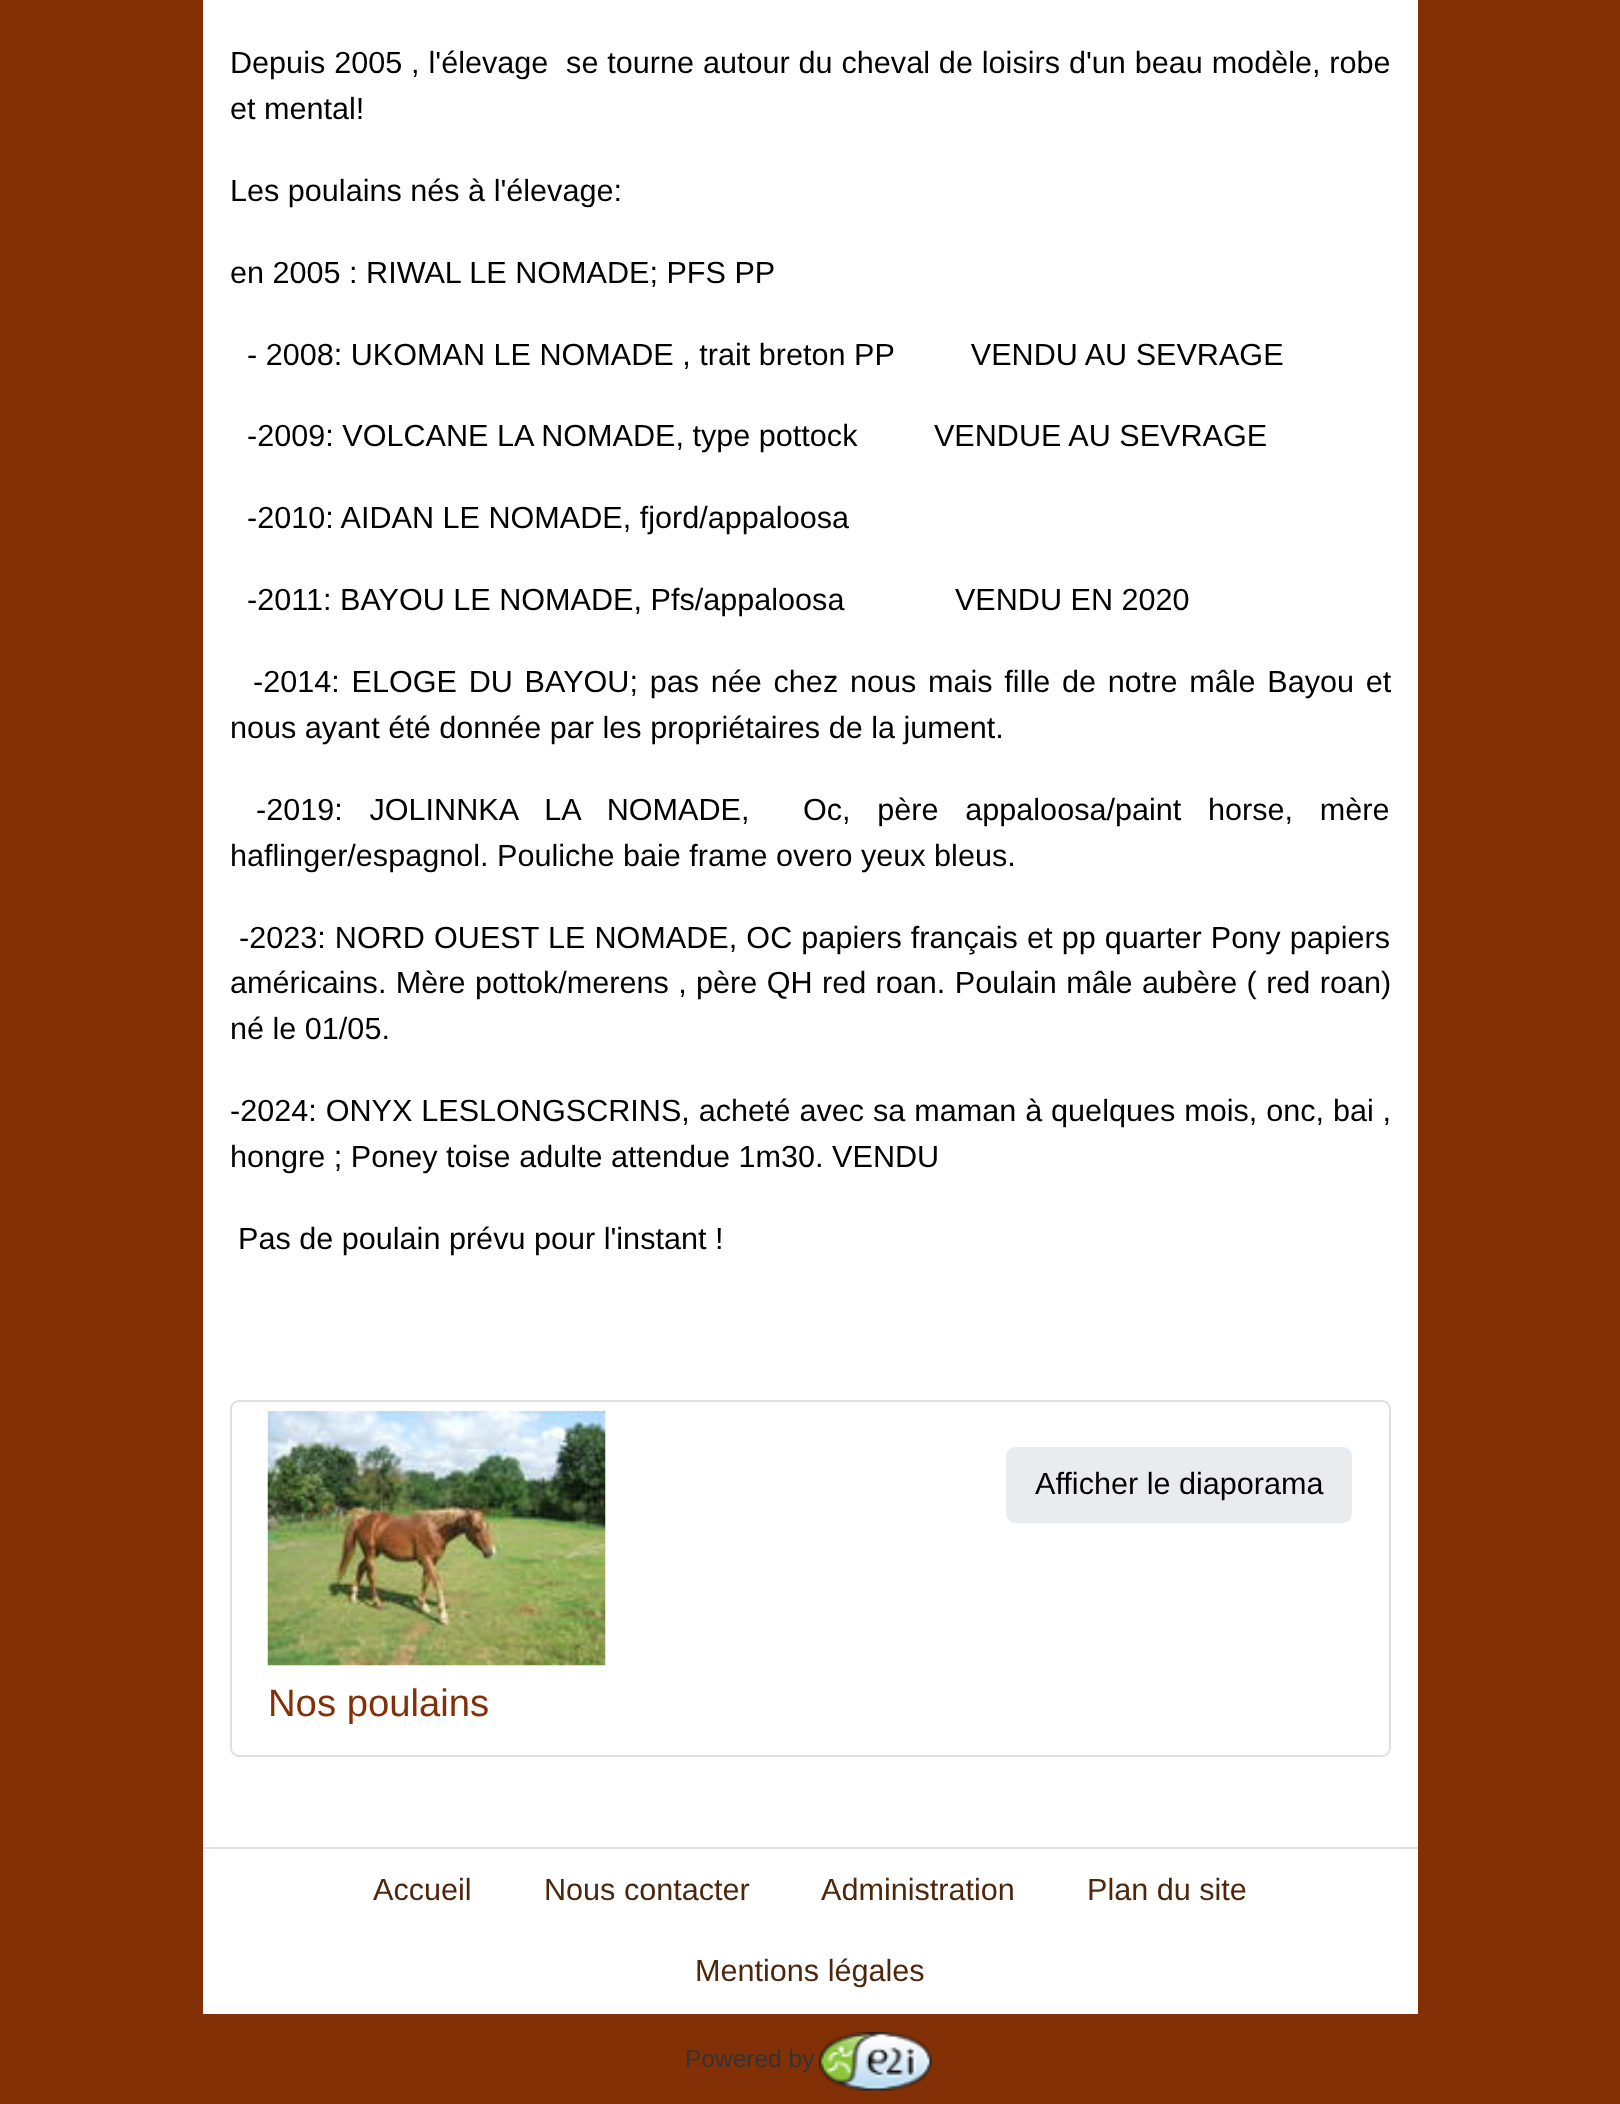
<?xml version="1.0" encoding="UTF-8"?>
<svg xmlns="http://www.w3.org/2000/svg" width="1620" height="2104">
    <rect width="100%" height="100%" fill="#833006"/>
    <rect x="203" y="0" width="1215" height="1847" fill="#FFFFFF"/>
    <text font-family="Liberation Sans" font-size="30.6" fill="#000000" xml:space="preserve"><tspan x="230" y="73" word-spacing="0.4">Depuis 2005 , l'élevage  se tourne autour du cheval de loisirs d'un beau modèle, robe</tspan><tspan x="230" y="119">et mental!</tspan></text>
    <text x="230" y="201" font-family="Liberation Sans" font-size="30.6" fill="#000000">Les poulains nés à l'élevage:</text>
    <text x="230" y="283" font-family="Liberation Sans" font-size="30.6" fill="#000000">en 2005 : RIWAL LE NOMADE; PFS PP</text>
    <text x="247" y="365" font-family="Liberation Sans" font-size="30.6" fill="#000000" xml:space="preserve">- 2008: UKOMAN LE NOMADE , trait breton PP         VENDU AU SEVRAGE</text>
    <text x="247" y="446" font-family="Liberation Sans" font-size="30.6" fill="#000000" xml:space="preserve">-2009: VOLCANE LA NOMADE, type pottock         VENDUE AU SEVRAGE</text>
    <text x="247" y="528" font-family="Liberation Sans" font-size="30.6" fill="#000000">-2010: AIDAN LE NOMADE, fjord/appaloosa</text>
    <text x="247" y="610" font-family="Liberation Sans" font-size="30.6" fill="#000000" xml:space="preserve">-2011: BAYOU LE NOMADE, Pfs/appaloosa             VENDU EN 2020</text>
    <text x="253" y="692" word-spacing="3.25" font-family="Liberation Sans" font-size="30.6" fill="#000000">-2014: ELOGE DU BAYOU; pas née chez nous mais fille de notre mâle Bayou et</text>
    <text x="230" y="738" font-family="Liberation Sans" font-size="30.6" fill="#000000">nous ayant été donnée par les propriétaires de la jument.</text>
    <text x="256" y="820" word-spacing="18.25" font-family="Liberation Sans" font-size="30.6" fill="#000000" xml:space="preserve">-2019: JOLINNKA LA NOMADE,  Oc, père appaloosa/paint horse, mère</text>
    <text x="230" y="866" font-family="Liberation Sans" font-size="30.6" fill="#000000">haflinger/espagnol. Pouliche baie frame overo yeux bleus.</text>
    <text x="239" y="948" word-spacing="0.6" font-family="Liberation Sans" font-size="30.6" fill="#000000">-2023: NORD OUEST LE NOMADE, OC papiers français et pp quarter Pony papiers</text>
    <text font-family="Liberation Sans" font-size="30.6" fill="#000000">
        <tspan x="230" y="993" word-spacing="0.9">américains. Mère pottok/merens , père QH red roan. Poulain mâle aubère ( red roan)</tspan>
        <tspan x="230" y="1039">né le 01/05.</tspan>
    </text>
    <text font-family="Liberation Sans" font-size="30.6" fill="#000000">
        <tspan x="230" y="1121" word-spacing="0.4">-2024: ONYX LESLONGSCRINS, acheté avec sa maman à quelques mois, onc, bai ,</tspan>
        <tspan x="230" y="1167">hongre ; Poney toise adulte attendue 1m30. VENDU</tspan>
    </text>
    <text x="238" y="1249" font-family="Liberation Sans" font-size="30.6" fill="#000000">Pas de poulain prévu pour l'instant !</text>
    <rect x="231" y="1401" width="1159" height="355" rx="8" fill="none" stroke="#DFDFDF" stroke-width="2"/>
    <image x="267" y="1411" width="339" height="255" href="img_01.png"/>
    <rect x="1007" y="1448" width="344" height="74" rx="8" fill="#E9ECEF" stroke="#E9ECEF" stroke-width="2"/>
    <text x="1035" y="1494" font-family="Liberation Sans" font-size="30.6" fill="#000000">Afficher le diaporama</text>
    <text x="268" y="1716" font-family="Liberation Sans" font-size="38.25" fill="#833006">Nos poulains</text>
    <rect x="203" y="1849" width="1215" height="165" fill="#FFFFFF"/>
    <rect x="203" y="1847" width="1215" height="2" fill="#DEE2E6"/>
    <text x="373" y="1900" font-family="Liberation Sans" font-size="30.6" fill="#4E260C">Accueil</text>
    <text x="544" y="1900" font-family="Liberation Sans" font-size="30.6" fill="#4E260C">Nous contacter</text>
    <text x="821" y="1900" font-family="Liberation Sans" font-size="30.6" fill="#4E260C">Administration</text>
    <text x="1087" y="1900" font-family="Liberation Sans" font-size="30.6" fill="#4E260C">Plan du site</text>
    <text x="695" y="1981" font-family="Liberation Sans" font-size="30.6" fill="#4E260C">Mentions légales</text>
    <text x="685" y="2067" font-family="Liberation Sans" font-size="24.5" fill="#333333">Powered by</text>
    <image x="819" y="2032" width="113" height="59" href="img_02.png"/>
</svg>
